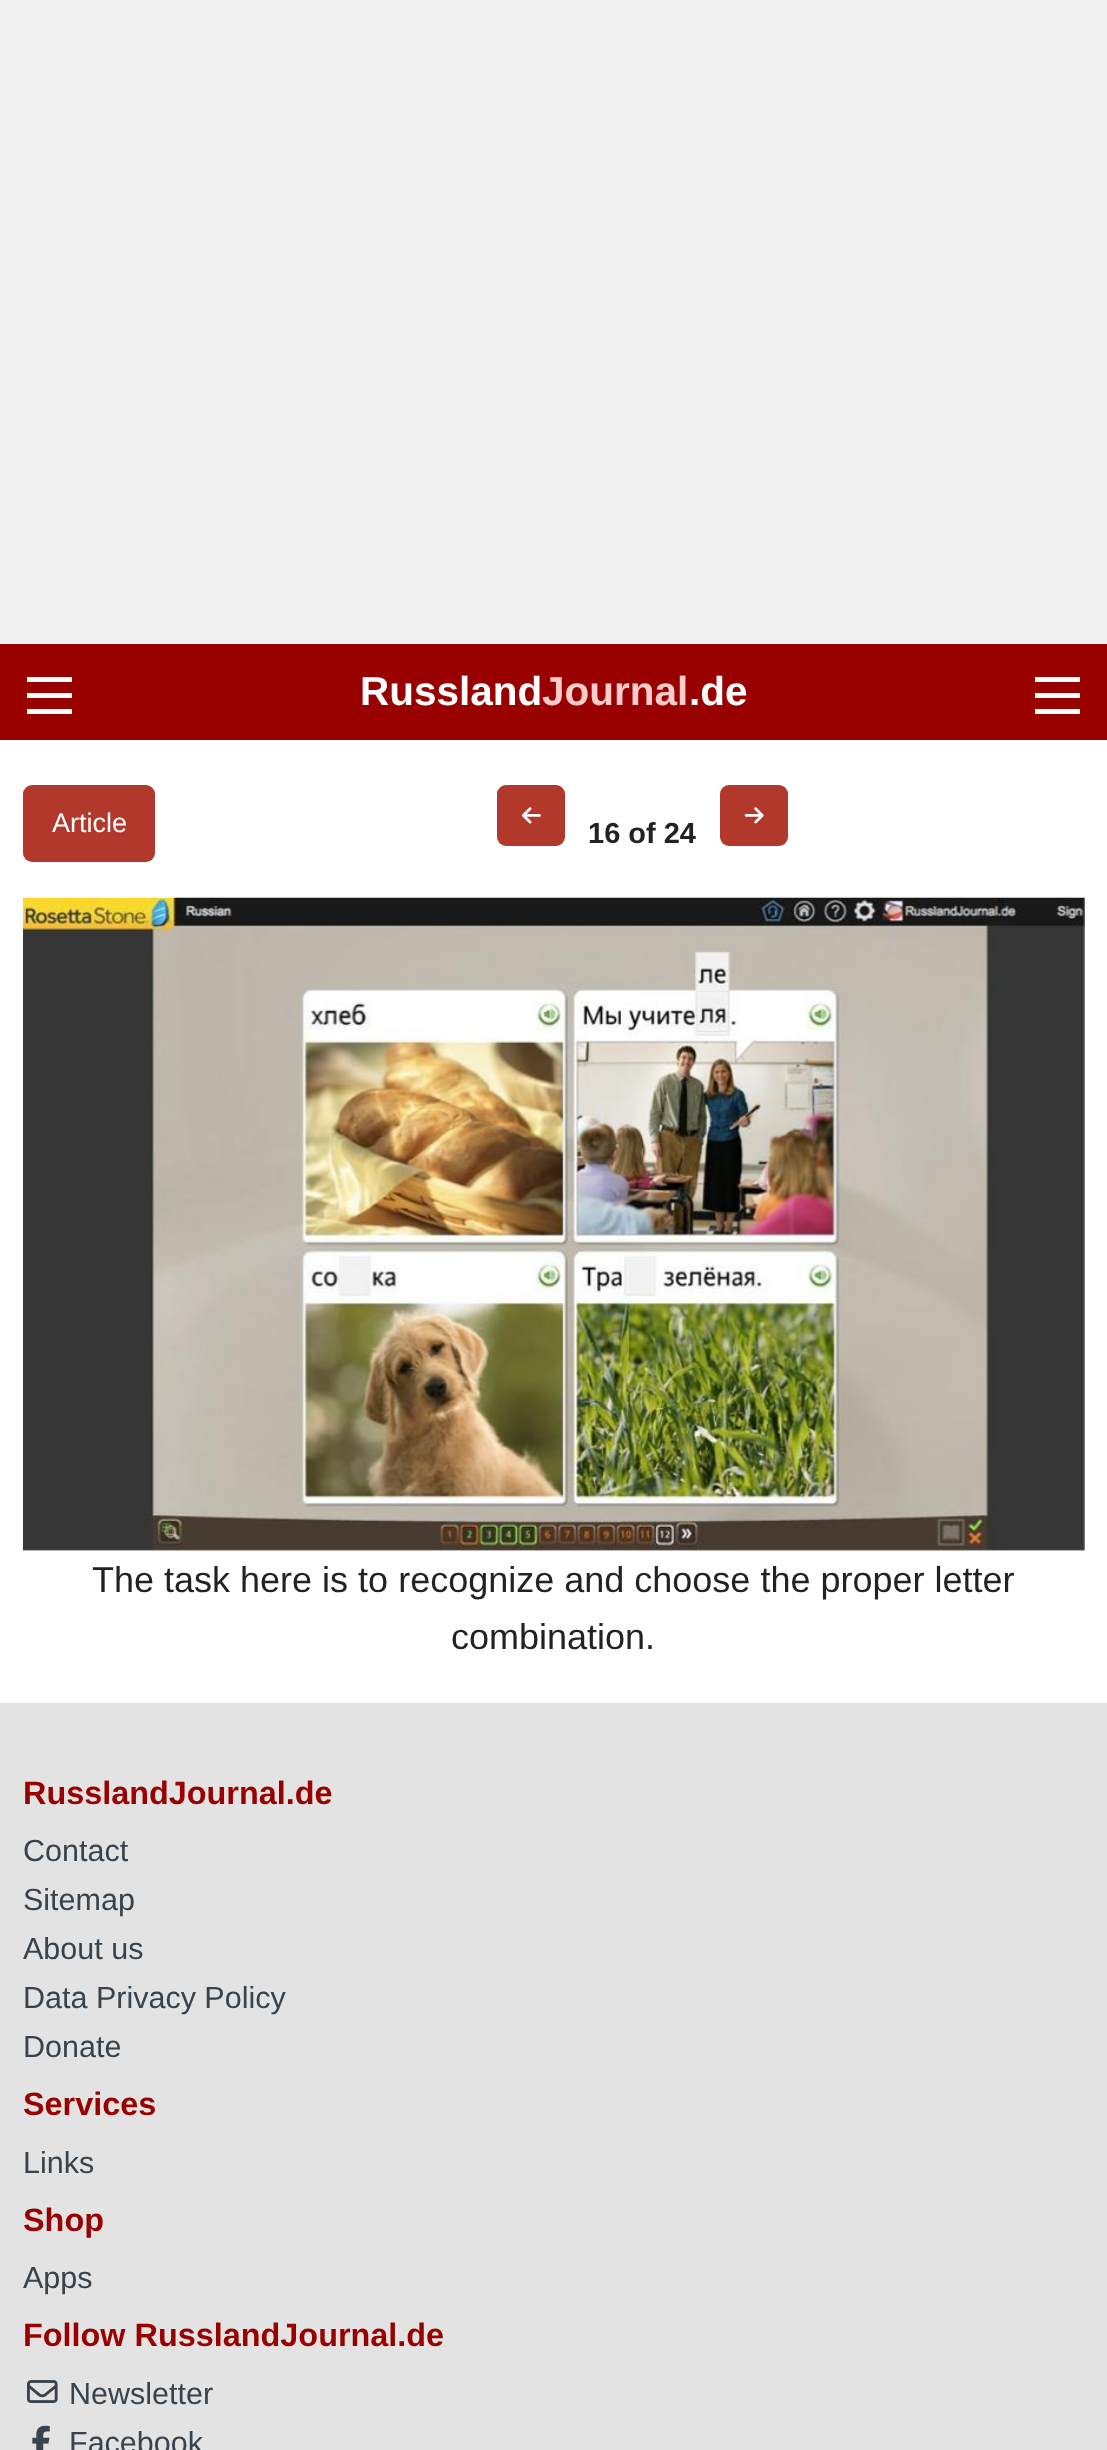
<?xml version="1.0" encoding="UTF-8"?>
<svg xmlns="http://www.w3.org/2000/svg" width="1107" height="2450">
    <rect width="100%" height="100%" fill="#F1F1F1"/>
    <rect x="0" y="644" width="1107" height="96" fill="#990000"/>
    <rect x="27" y="709" width="45" height="5" fill="#FFFFFF"/>
    <rect x="27" y="693" width="45" height="5" fill="#FFFFFF"/>
    <rect x="27" y="677" width="45" height="5" fill="#FFFFFF"/>
    <text x="360" y="705" font-family="Liberation Sans" font-size="40.5" font-weight="700" fill="#FFFFFF">Russland</text>
    <text x="542" y="705" font-family="Liberation Sans" font-size="40.5" font-weight="700" fill="#FFCCCC">Journal</text>
    <text x="689" y="705" font-family="Liberation Sans" font-size="40.5" font-weight="700" fill="#FFFFFF">.de</text>
    <rect x="1035" y="709" width="45" height="5" fill="#FFFFFF"/>
    <rect x="1035" y="693" width="45" height="5" fill="#FFFFFF"/>
    <rect x="1035" y="677" width="45" height="5" fill="#FFFFFF"/>
    <rect x="0" y="740" width="1107" height="963" fill="#FFFFFF"/>
    <rect x="23" y="785" width="132" height="77" rx="9" fill="#B3382C"/>
    <text x="52" y="832" font-family="Liberation Sans" font-size="27" fill="#FFFFFF">Article</text>
    <rect x="497" y="785" width="68" height="61" rx="9" fill="#B3382C"/>
    <image x="522" y="807" width="19" height="17" href="img_01.png"/>
    <text x="588" y="843" font-family="Liberation Sans" font-size="29" font-weight="700" fill="#222222">16 of 24</text>
    <rect x="720" y="785" width="68" height="61" rx="9" fill="#B3382C"/>
    <image x="744" y="807" width="20" height="17" href="img_02.png"/>
    <image x="23" y="896" width="1062" height="655" href="img_03.png"/>
    <text x="92" y="1592" font-family="Liberation Sans" font-size="36" fill="#222222">The task here is to recognize and choose the proper letter</text>
    <text x="451" y="1649" font-family="Liberation Sans" font-size="36" fill="#222222">combination.</text>
    <rect x="0" y="1703" width="1107" height="747" fill="#E3E3E3"/>
    <text x="23" y="1804" font-family="Liberation Sans" font-size="32.4" font-weight="700" fill="#990000">RusslandJournal.de</text>
    <text font-family="Liberation Sans" font-size="30.5" fill="#39434C">
        <tspan x="23" y="1861">Contact</tspan>
        <tspan x="23" y="1910">Sitemap</tspan>
        <tspan x="23" y="1959">About us</tspan>
        <tspan x="23" y="2008">Data Privacy Policy</tspan>
        <tspan x="23" y="2057">Donate</tspan>
    </text>
    <text x="23" y="2115" font-family="Liberation Sans" font-size="32.4" font-weight="700" fill="#990000">Services</text>
    <text x="23" y="2173" font-family="Liberation Sans" font-size="30.5" fill="#39434C">Links</text>
    <text x="23" y="2231" font-family="Liberation Sans" font-size="32.4" font-weight="700" fill="#990000">Shop</text>
    <text x="23" y="2288" font-family="Liberation Sans" font-size="30.5" fill="#39434C">Apps</text>
    <text x="23" y="2346" font-family="Liberation Sans" font-size="32.4" font-weight="700" fill="#990000">Follow RusslandJournal.de</text>
    <image x="27" y="2380" width="31" height="23" href="img_04.png"/>
    <text x="69" y="2404" font-family="Liberation Sans" font-size="30.5" fill="#39434C">Newsletter</text>
    <image x="32" y="2425" width="18" height="25" href="img_05.png"/>
    <text x="69" y="2453" font-family="Liberation Sans" font-size="30.5" fill="#39434C">Facebook</text>
</svg>
